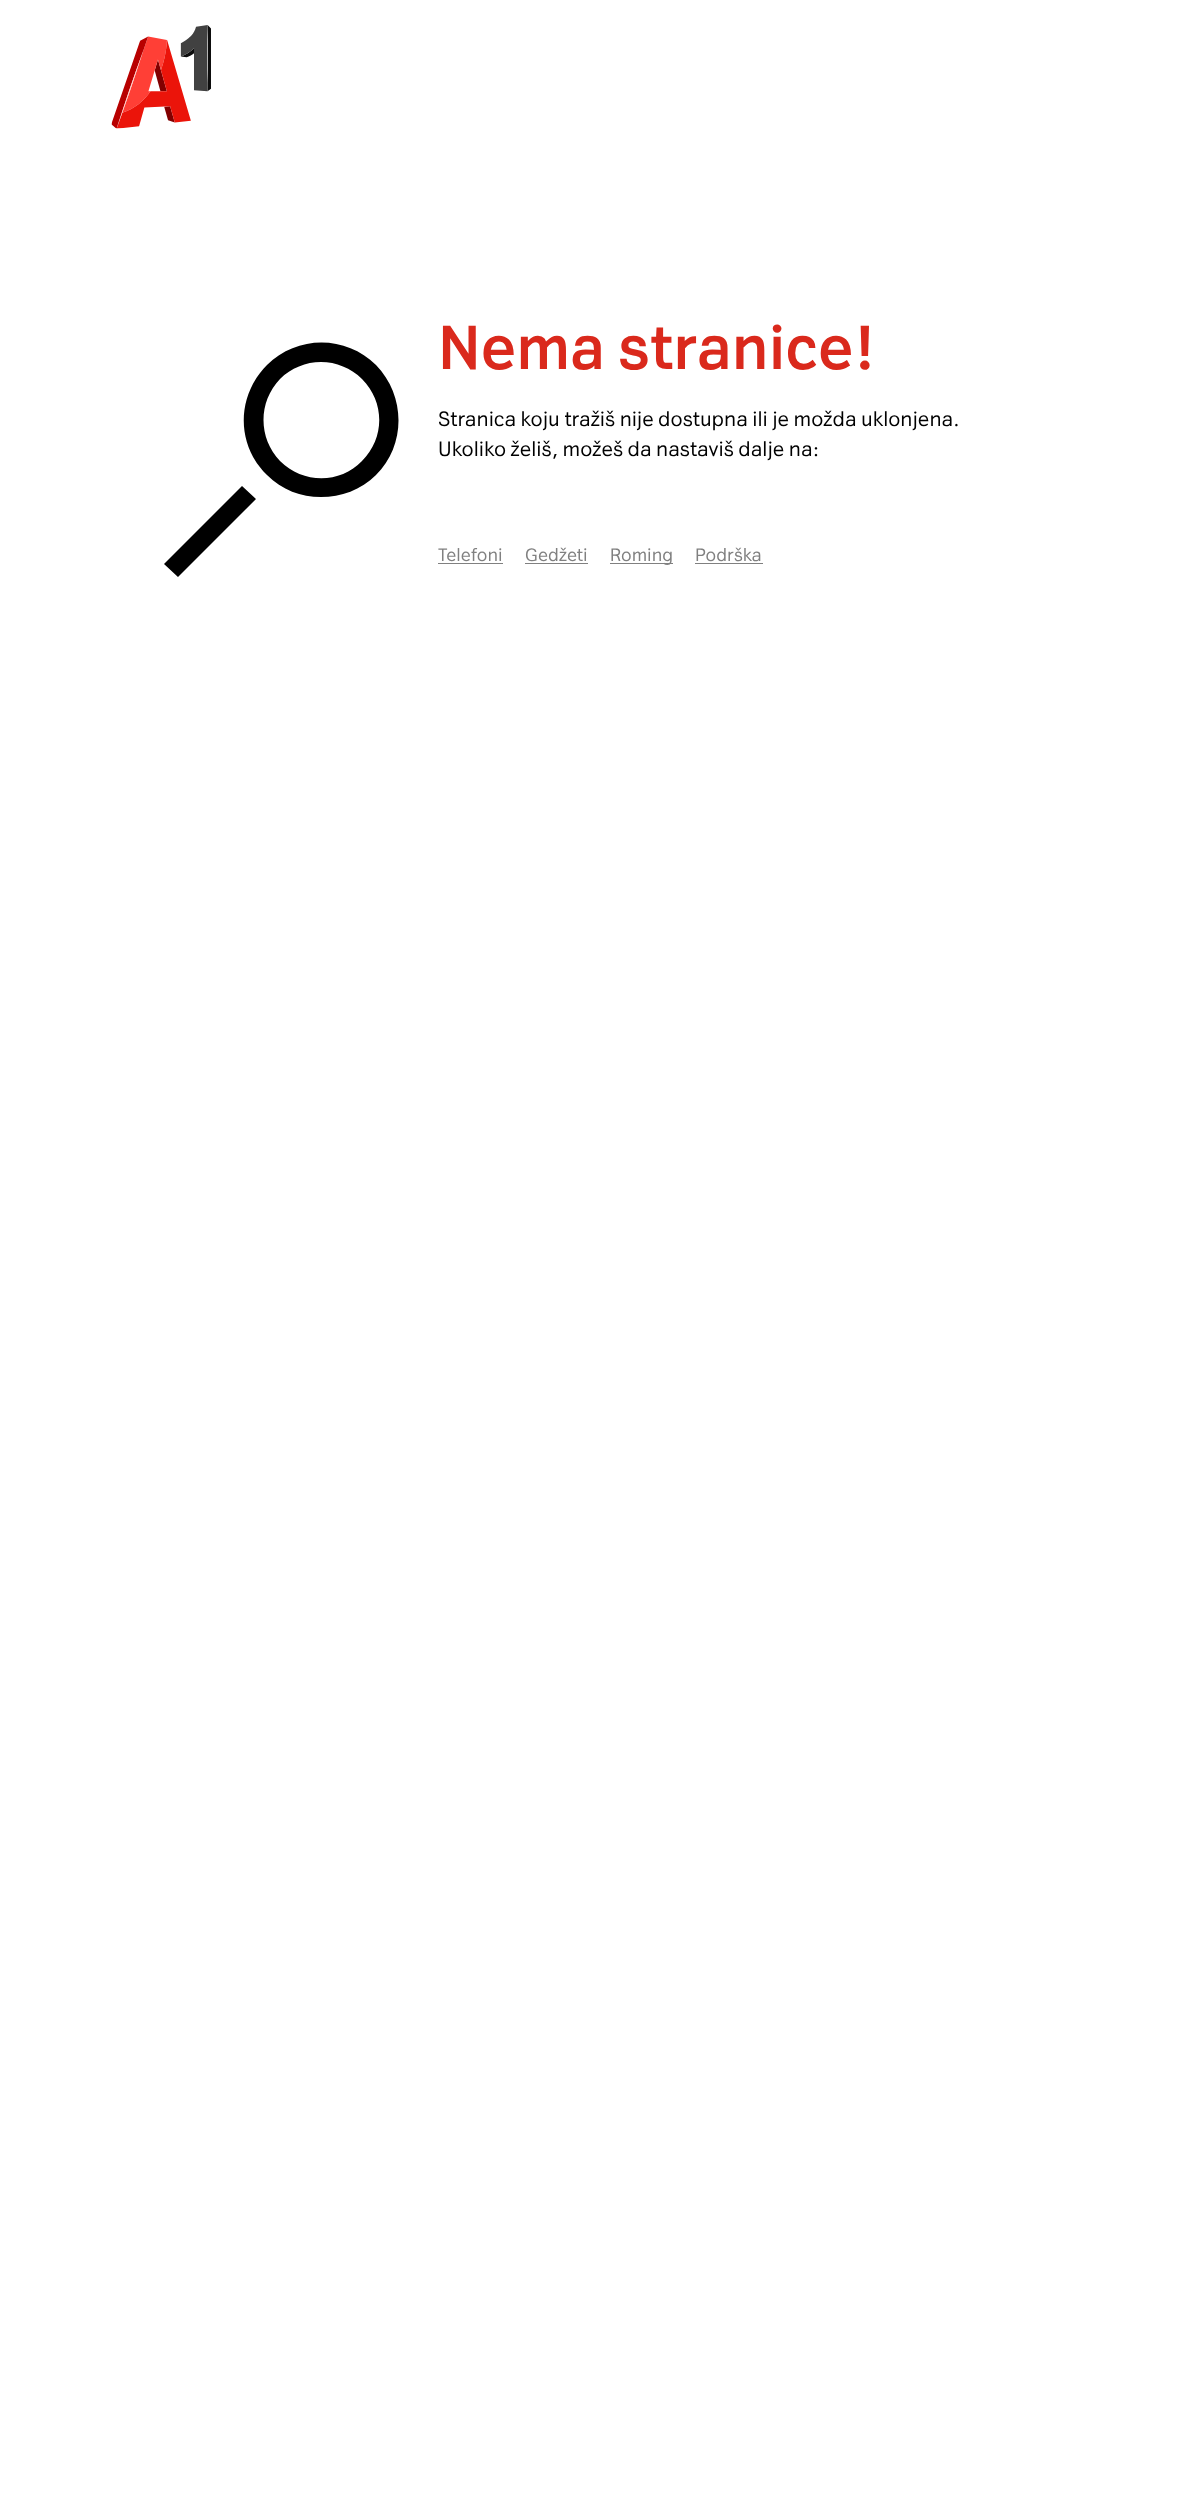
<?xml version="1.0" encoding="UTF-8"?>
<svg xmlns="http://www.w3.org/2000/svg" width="1182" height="2517">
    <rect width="100%" height="100%" fill="#FFFFFF"/>
    <image x="111" y="25" width="100" height="104" href="img_01.png"/>
    <path d="M 321 497 C 301 497 282 490 267 475 C 236 445 236 396 267 365 C 297 335 346 335 376 365 C 406 396 406 445 376 475 C 361 490 341 497 321 497 Z M 321 362 C 306 362 291 368 280 379 C 258 402 258 438 280 461 C 303 484 340 484 362 461 C 385 438 385 402 362 379 C 351 368 336 362 321 362 Z M 256 499 L 242 486 L 164 564 L 178 577 Z" fill="#000000"/>
    <text x="438" y="369" font-family="'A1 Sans'" font-size="60" font-weight="700" fill="#DA291C">Nema stranice!</text>
    <text font-family="'A1 Sans'" font-size="20" fill="#000000">
        <tspan x="438" y="426">Stranica koju tražiš nije dostupna ili je možda uklonjena.</tspan>
        <tspan x="438" y="456">Ukoliko želiš, možeš da nastaviš dalje na:</tspan>
    </text>
    <text x="438" y="561" font-family="'A1 Sans'" font-size="17.5" fill="#808080">Telefoni</text>
    <rect x="438" y="563" width="65" height="1" fill="#808080"/>
    <text x="525" y="561" font-family="'A1 Sans'" font-size="17.5" fill="#808080">Gedžeti</text>
    <rect x="525" y="563" width="63" height="1" fill="#808080"/>
    <rect x="610" y="563" width="63" height="1" fill="#808080"/>
    <text x="610" y="561" font-family="'A1 Sans'" font-size="17.5" fill="#808080">Roming</text>
    <text x="695" y="561" font-family="'A1 Sans'" font-size="17.5" fill="#808080">Podrška</text>
    <rect x="695" y="563" width="68" height="1" fill="#808080"/>
</svg>
